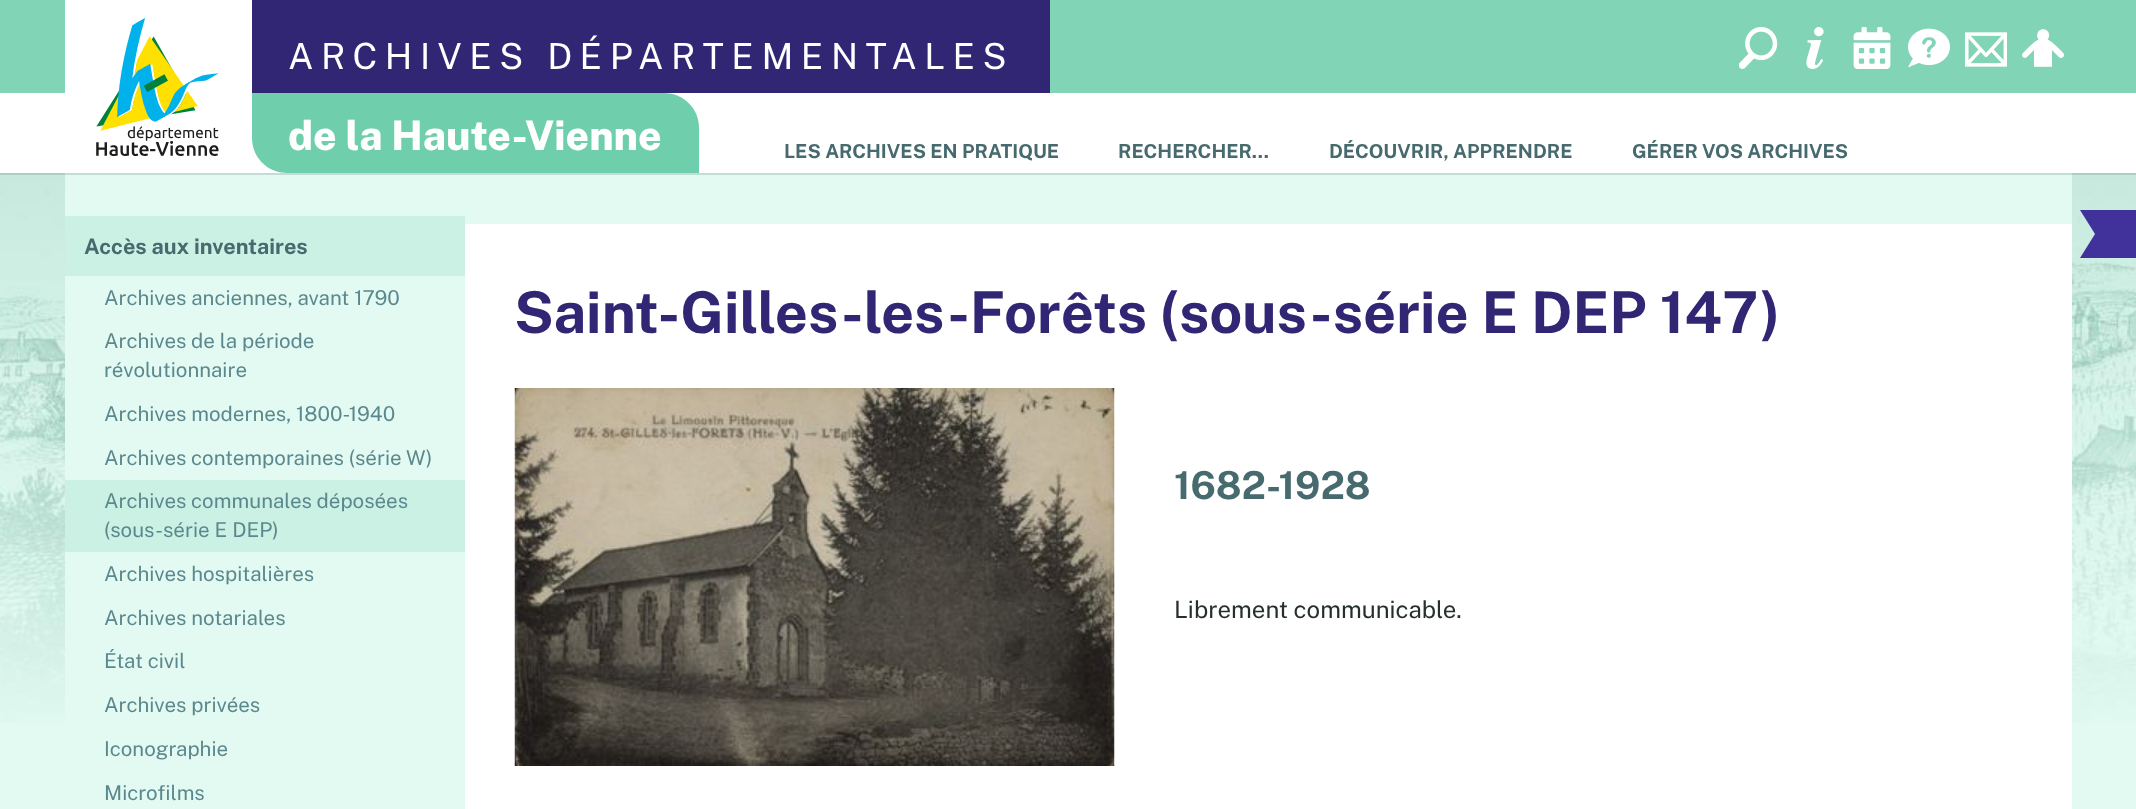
<?xml version="1.0" encoding="UTF-8"?>
<svg xmlns="http://www.w3.org/2000/svg" width="2136" height="809">
    <rect width="100%" height="100%" fill="#E2FAF2"/>
    <image x="0" y="173" width="2136" height="550" href="img_01.png"/>
    <rect x="0" y="0" width="2136" height="93" fill="#82D4B7"/>
    <rect x="65" y="0" width="187" height="93" fill="#FFFFFF"/>
    <rect x="0" y="93" width="2136" height="80" fill="#FFFFFF"/>
    <image x="96" y="18" width="123" height="138" href="img_02.png"/>
    <rect x="252" y="0" width="798" height="93" fill="#312674"/>
    <text x="288" y="69" font-family="'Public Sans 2'" font-size="36" font-weight="100" letter-spacing="7.5" fill="#FFFFFF">ARCHIVES DÉPARTEMENTALES</text>
    <image x="1738" y="27" width="40" height="42" href="img_03.png"/>
    <image x="1806" y="27" width="18" height="42" href="img_04.png"/>
    <image x="1853" y="27" width="38" height="42" href="img_05.png"/>
    <image x="1908" y="28" width="42" height="40" href="img_06.png"/>
    <image x="1965" y="32" width="42" height="35" href="img_07.png"/>
    <image x="2022" y="29" width="42" height="38" href="img_08.png"/>
    <path d="M 252 93 H 664 C 683.5 93 699 108.5 699 128 V 173 H 287 C 267.5 173 252 157.5 252 138 Z" fill="#6FCEAC"/>
    <text x="288" y="150" font-family="'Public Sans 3'" font-size="40.75" font-weight="100" fill="#FFFFFF">de la Haute-Vienne</text>
    <rect x="65" y="173" width="400" height="550" fill="#E2FAF2"/>
    <rect x="465" y="173" width="1607" height="51" fill="#E2FAF2"/>
    <rect x="0" y="173" width="2136" height="2" fill="#476A6F" fill-opacity="0.2"/>
    <text x="784" y="158" font-family="Public Sans" font-size="19.25" font-weight="100" fill="#476A6F">LES ARCHIVES EN PRATIQUE</text>
    <text x="1118" y="158" font-family="Public Sans" font-size="19.25" font-weight="100" fill="#476A6F">RECHERCHER…</text>
    <text x="1329" y="158" font-family="Public Sans" font-size="19.25" font-weight="100" fill="#476A6F">DÉCOUVRIR, APPRENDRE</text>
    <text x="1632" y="158" font-family="Public Sans" font-size="19.25" font-weight="100" fill="#476A6F">GÉRER VOS ARCHIVES</text>
    <rect x="65" y="216" width="400" height="60" fill="#CBF1E4"/>
    <text x="84" y="254" font-family="Public Sans" font-size="21.6" font-weight="100" fill="#476A6F">Accès aux inventaires</text>
    <text x="104" y="305" font-family="'Public Sans 2'" font-size="20.5" font-weight="100" fill="#5B888E">Archives anciennes, avant 1790</text>
    <text font-family="'Public Sans 2'" font-size="20.5" font-weight="100" fill="#5B888E">
        <tspan x="104" y="348">Archives de la période</tspan>
        <tspan x="104" y="377">révolutionnaire</tspan>
    </text>
    <text x="104" y="421" font-family="'Public Sans 2'" font-size="20.5" font-weight="100" fill="#5B888E">Archives modernes, 1800-1940</text>
    <text x="104" y="465" font-family="'Public Sans 2'" font-size="20.5" font-weight="100" fill="#5B888E">Archives contemporaines (série W)</text>
    <rect x="65" y="480" width="400" height="72" fill="#CBF1E4"/>
    <text font-family="'Public Sans 2'" font-size="20.5" font-weight="100" fill="#5B888E">
        <tspan x="104" y="508">Archives communales déposées</tspan>
        <tspan x="104" y="537">(sous-série E DEP)</tspan>
    </text>
    <text x="104" y="581" font-family="'Public Sans 2'" font-size="20.5" font-weight="100" fill="#5B888E">Archives hospitalières</text>
    <text x="104" y="625" font-family="'Public Sans 2'" font-size="20.5" font-weight="100" fill="#5B888E">Archives notariales</text>
    <text x="104" y="668" font-family="'Public Sans 2'" font-size="20.5" font-weight="100" fill="#5B888E">État civil</text>
    <text x="104" y="712" font-family="'Public Sans 2'" font-size="20.5" font-weight="100" fill="#5B888E">Archives privées</text>
    <text x="104" y="756" font-family="'Public Sans 2'" font-size="20.5" font-weight="100" fill="#5B888E">Iconographie</text>
    <text x="104" y="800" font-family="'Public Sans 2'" font-size="20.5" font-weight="100" fill="#5B888E">Microfilms</text>
    <rect x="465" y="224" width="1607" height="585" fill="#FFFFFF"/>
    <text x="514" y="333" font-family="Public Sans" font-size="57.6" font-weight="100" fill="#312674">Saint-Gilles-les-Forêts (sous-série E DEP 147)</text>
    <image x="514" y="388" width="601" height="378" href="img_09.png"/>
    <text x="1174" y="499" font-family="Public Sans" font-size="38.5" font-weight="100" fill="#476A6F">1682-1928</text>
    <text x="1174" y="618" font-family="'Public Sans 2'" font-size="24" font-weight="100" fill="#252F2C">Librement communicable.</text>
    <path d="M 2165 258 H 2080 L 2095 234 L 2080 210 H 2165 Z" fill="#41329B"/>
</svg>
